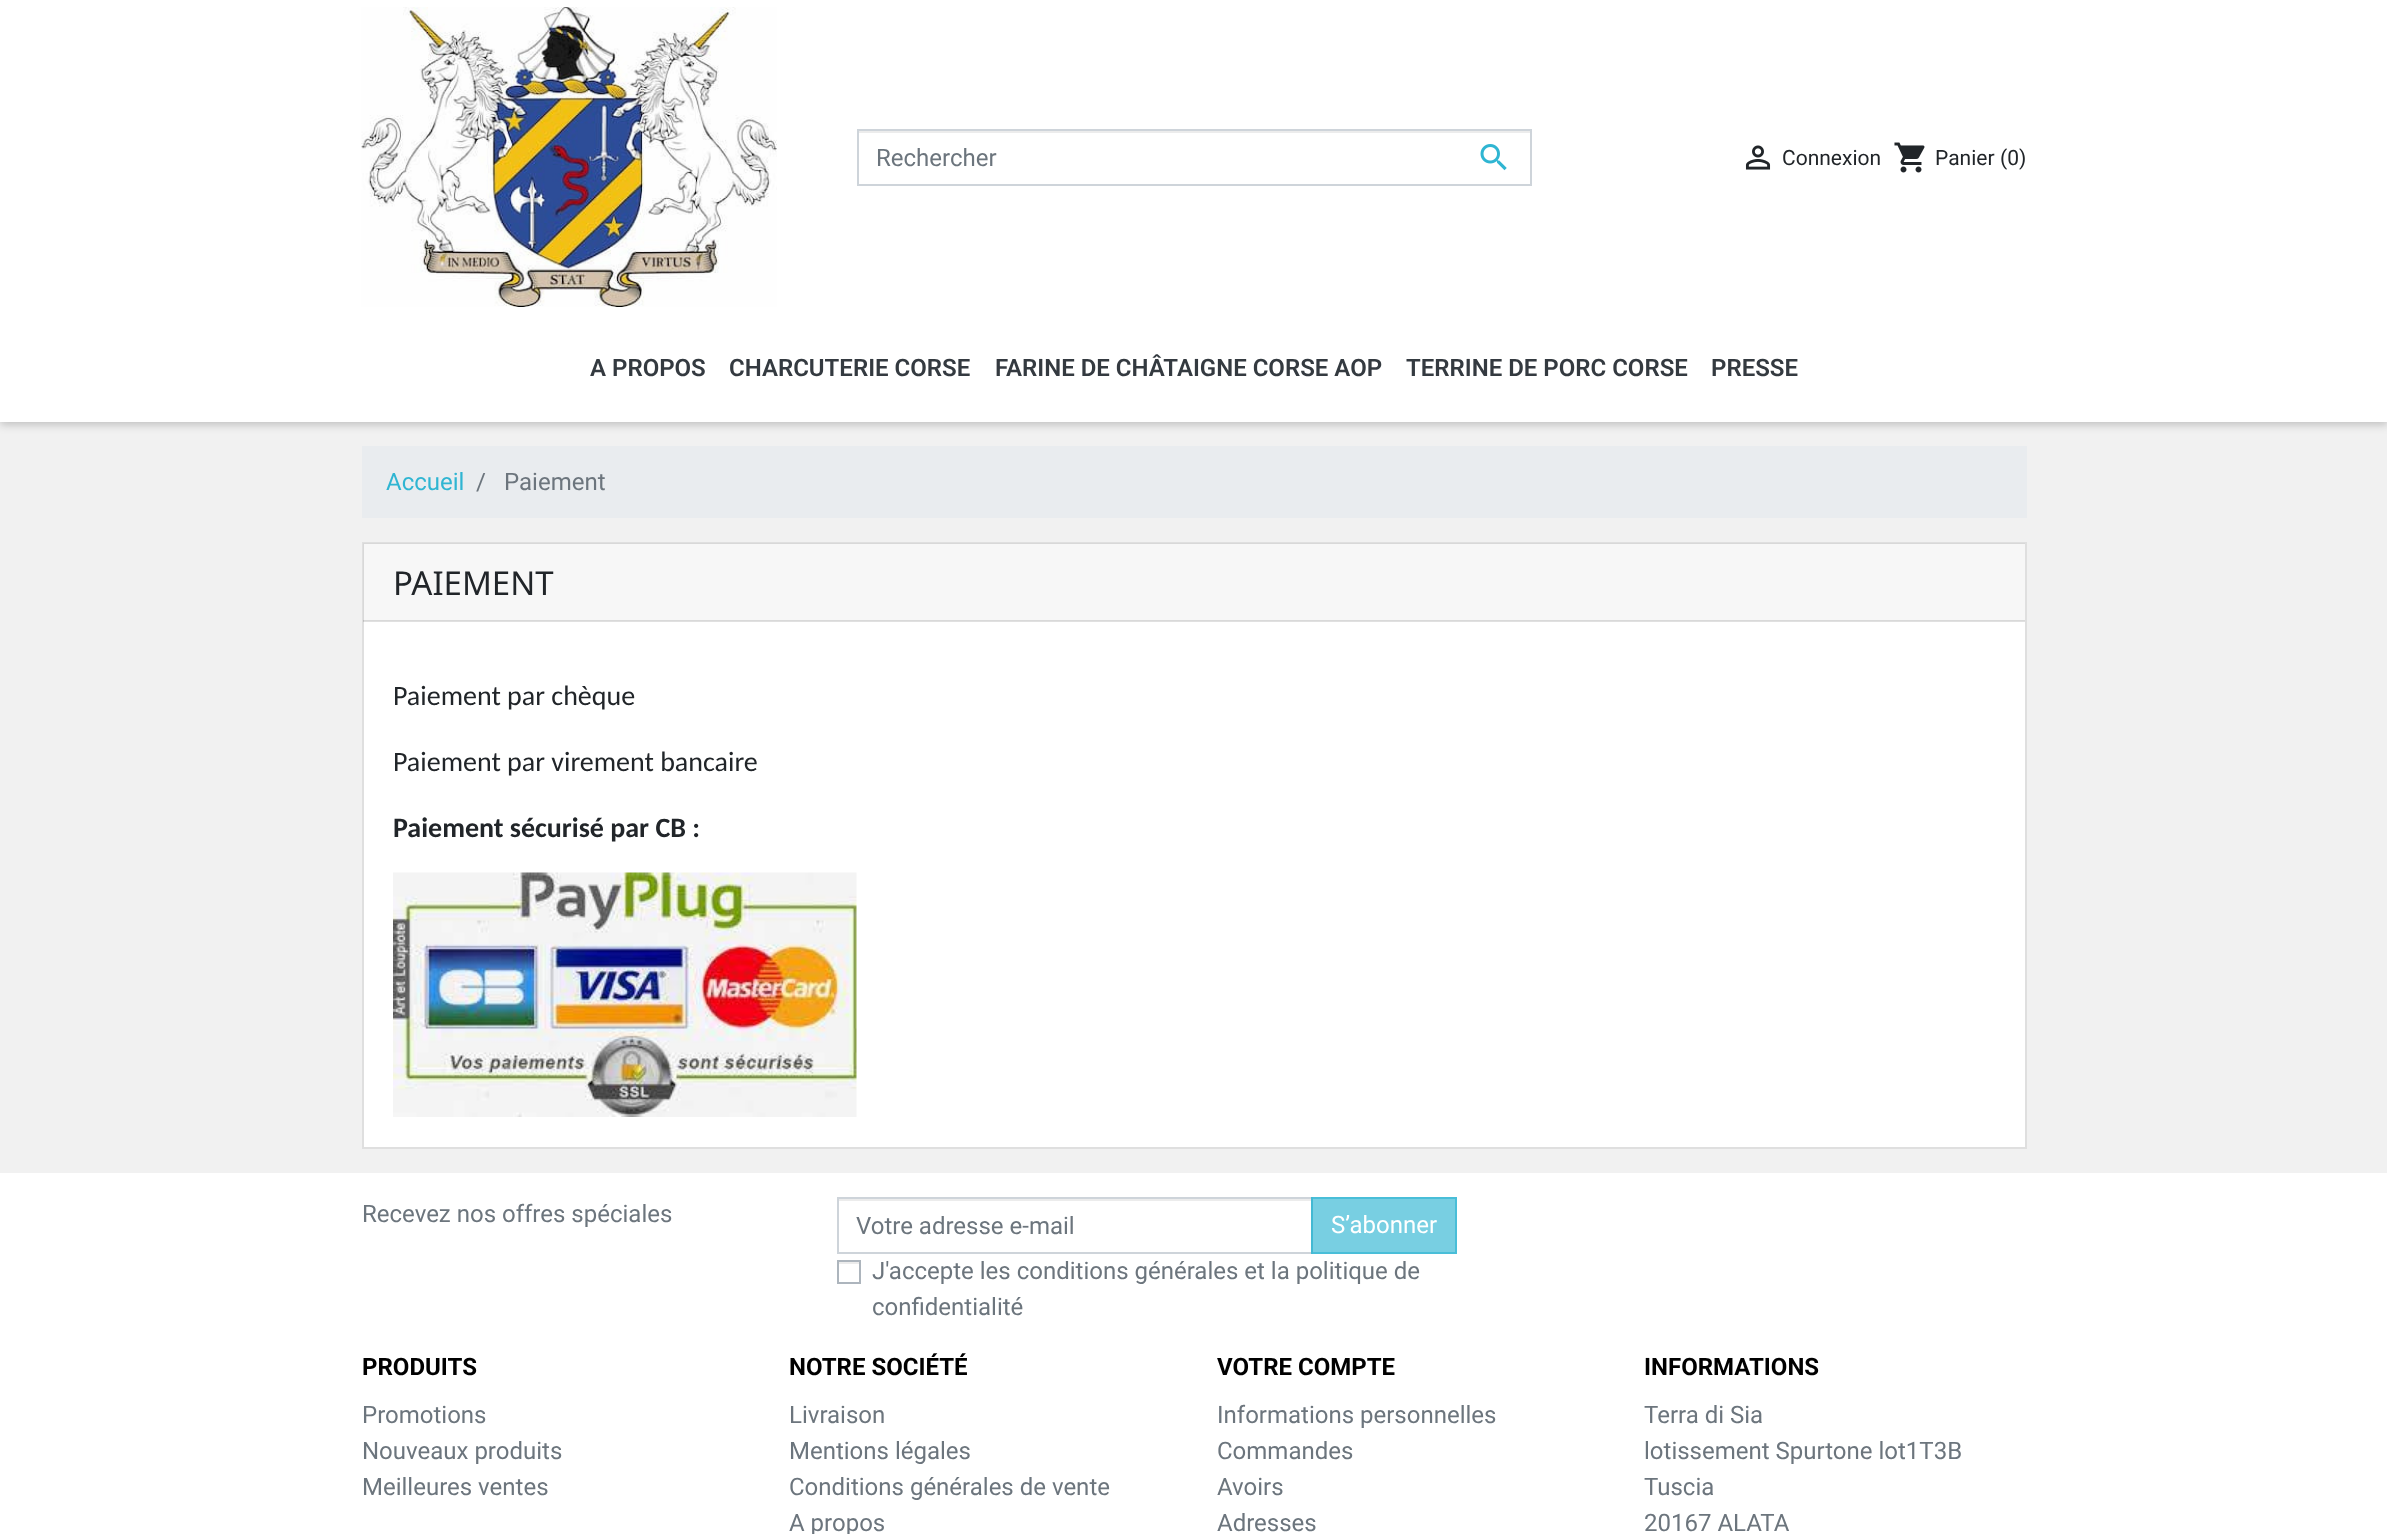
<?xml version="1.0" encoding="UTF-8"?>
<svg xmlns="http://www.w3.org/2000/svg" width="2387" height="1534">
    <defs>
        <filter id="blur1" x="-50%" y="-200%" width="200%" height="500%"><feGaussianBlur stdDeviation="4.5"/></filter>
    </defs>
    <rect width="100%" height="100%" fill="#F1F1F1"/>
    <rect x="0" y="-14" width="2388" height="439" fill="#000000" fill-opacity="0.2" filter="url(#blur1)"/>
    <rect x="0" y="0" width="2387" height="422" fill="#FFFFFF"/>
    <image x="361" y="7" width="416" height="300" href="img_01.png"/>
    <rect x="858" y="131" width="672" height="2" fill="#ECECEC"/>
    <rect x="858" y="130" width="673" height="55" fill="none" stroke="#CED4DA" stroke-width="2"/>
    <text x="876" y="166" font-family="Roboto" font-size="24" fill="#6C757D">Rechercher</text>
    <image x="1480" y="144" width="27" height="27" href="img_02.png"/>
    <image x="1745" y="145" width="26" height="25" href="img_03.png"/>
    <text x="1782" y="165" font-family="Roboto" font-size="21" fill="#212529">Connexion</text>
    <image x="1894" y="142" width="31" height="31" href="img_04.png"/>
    <text x="1935" y="165" font-family="Roboto" font-size="21" fill="#212529">Panier</text>
    <text x="2000" y="165" font-family="Roboto" font-size="21" fill="#212529">(0)</text>
    <text x="590" y="376" font-family="Roboto" font-size="24" font-weight="600" fill="#343A40">A PROPOS</text>
    <text x="729" y="376" font-family="Roboto" font-size="24" font-weight="600" fill="#343A40">CHARCUTERIE CORSE</text>
    <text x="995" y="376" font-family="Roboto" font-size="24" font-weight="600" fill="#343A40">FARINE DE CHÂTAIGNE CORSE AOP</text>
    <text x="1406" y="376" font-family="Roboto" font-size="24" font-weight="600" fill="#343A40">TERRINE DE PORC CORSE</text>
    <text x="1711" y="376" font-family="Roboto" font-size="24" font-weight="600" fill="#343A40">PRESSE</text>
    <rect x="362" y="446" width="1665" height="72" fill="#E9ECEF"/>
    <text x="386" y="490" font-family="Roboto" font-size="24" fill="#2FB5D2">Accueil</text>
    <text x="476" y="490" font-family="Roboto" font-size="24" fill="#6C757D">/</text>
    <text x="504" y="490" font-family="Roboto" font-size="24" fill="#6C757D">Paiement</text>
    <rect x="363" y="543" width="1663" height="605" fill="#FFFFFF" stroke="#DFDFDF" stroke-width="2"/>
    <rect x="363" y="543" width="1662" height="78" fill="#000000" fill-opacity="0.03"/>
    <rect x="363" y="620" width="1662" height="2" fill="#000000" fill-opacity="0.12"/>
    <text x="393" y="595" font-family="Noto Sans" font-size="33" fill="#212529">PAIEMENT</text>
    <text x="393" y="705" font-family="Carlito" font-size="28" fill="#212529">Paiement par chèque</text>
    <text x="393" y="771" font-family="Carlito" font-size="28" fill="#212529">Paiement par virement bancaire</text>
    <text x="393" y="837" font-family="Carlito" font-size="28" font-weight="700" fill="#212529">Paiement sécurisé par CB :</text>
    <image x="393" y="872" width="464" height="245" href="img_05.png"/>
    <rect x="0" y="1173" width="2387" height="361" fill="#FFFFFF"/>
    <text x="362" y="1222" font-family="Roboto" font-size="24" fill="#6C757D">Recevez nos offres spéciales</text>
    <rect x="839" y="1199" width="472" height="2" fill="#ECECEC"/>
    <rect x="838" y="1198" width="474" height="55" fill="none" stroke="#CED4DA" stroke-width="2"/>
    <text x="856" y="1234" font-family="Roboto" font-size="24" fill="#6C757D">Votre adresse e-mail</text>
    <rect x="1311" y="1197" width="146" height="57" fill="#2FB5D2" fill-opacity="0.65"/>
    <rect x="1312" y="1198" width="144" height="55" fill="none" stroke="#2FB5D2" stroke-opacity="0.65" stroke-width="2"/>
    <text x="1331" y="1233" font-family="Roboto" font-size="24" fill="#FFFFFF">S’abonner</text>
    <rect x="839" y="1262" width="21" height="2" fill="#ECECEC"/>
    <rect x="838" y="1261" width="22" height="22" fill="none" stroke="#ADB5BD" stroke-width="2"/>
    <text font-family="Roboto" font-size="24" fill="#6C757D">
        <tspan x="872" y="1279">J'accepte les conditions générales et la politique de</tspan>
        <tspan x="872" y="1315">confidentialité</tspan>
    </text>
    <text x="362" y="1375" font-family="Roboto" font-size="24" font-weight="700" fill="#000000">PRODUITS</text>
    <text font-family="Roboto" font-size="24" fill="#6C757D">
        <tspan x="362" y="1423">Promotions</tspan>
        <tspan x="362" y="1459">Nouveaux produits</tspan>
        <tspan x="362" y="1495">Meilleures ventes</tspan>
    </text>
    <text x="789" y="1375" font-family="Roboto" font-size="24" font-weight="700" fill="#000000">NOTRE SOCIÉTÉ</text>
    <text font-family="Roboto" font-size="24" fill="#6C757D">
        <tspan x="789" y="1423">Livraison</tspan>
        <tspan x="789" y="1459">Mentions légales</tspan>
        <tspan x="789" y="1495">Conditions générales de vente</tspan>
        <tspan x="789" y="1531">A propos</tspan>
    </text>
    <text x="1217" y="1375" font-family="Roboto" font-size="24" font-weight="700" fill="#000000">VOTRE COMPTE</text>
    <text font-family="Roboto" font-size="24" fill="#6C757D">
        <tspan x="1217" y="1423">Informations personnelles</tspan>
        <tspan x="1217" y="1459">Commandes</tspan>
        <tspan x="1217" y="1495">Avoirs</tspan>
        <tspan x="1217" y="1531">Adresses</tspan>
    </text>
    <text x="1644" y="1375" font-family="Roboto" font-size="24" font-weight="700" fill="#000000">INFORMATIONS</text>
    <text font-family="Roboto" font-size="24" fill="#6C757D">
        <tspan x="1644" y="1423">Terra di Sia</tspan>
        <tspan x="1644" y="1459">lotissement Spurtone lot1T3B</tspan>
        <tspan x="1644" y="1495">Tuscia</tspan>
        <tspan x="1644" y="1531">20167 ALATA</tspan>
    </text>
</svg>
